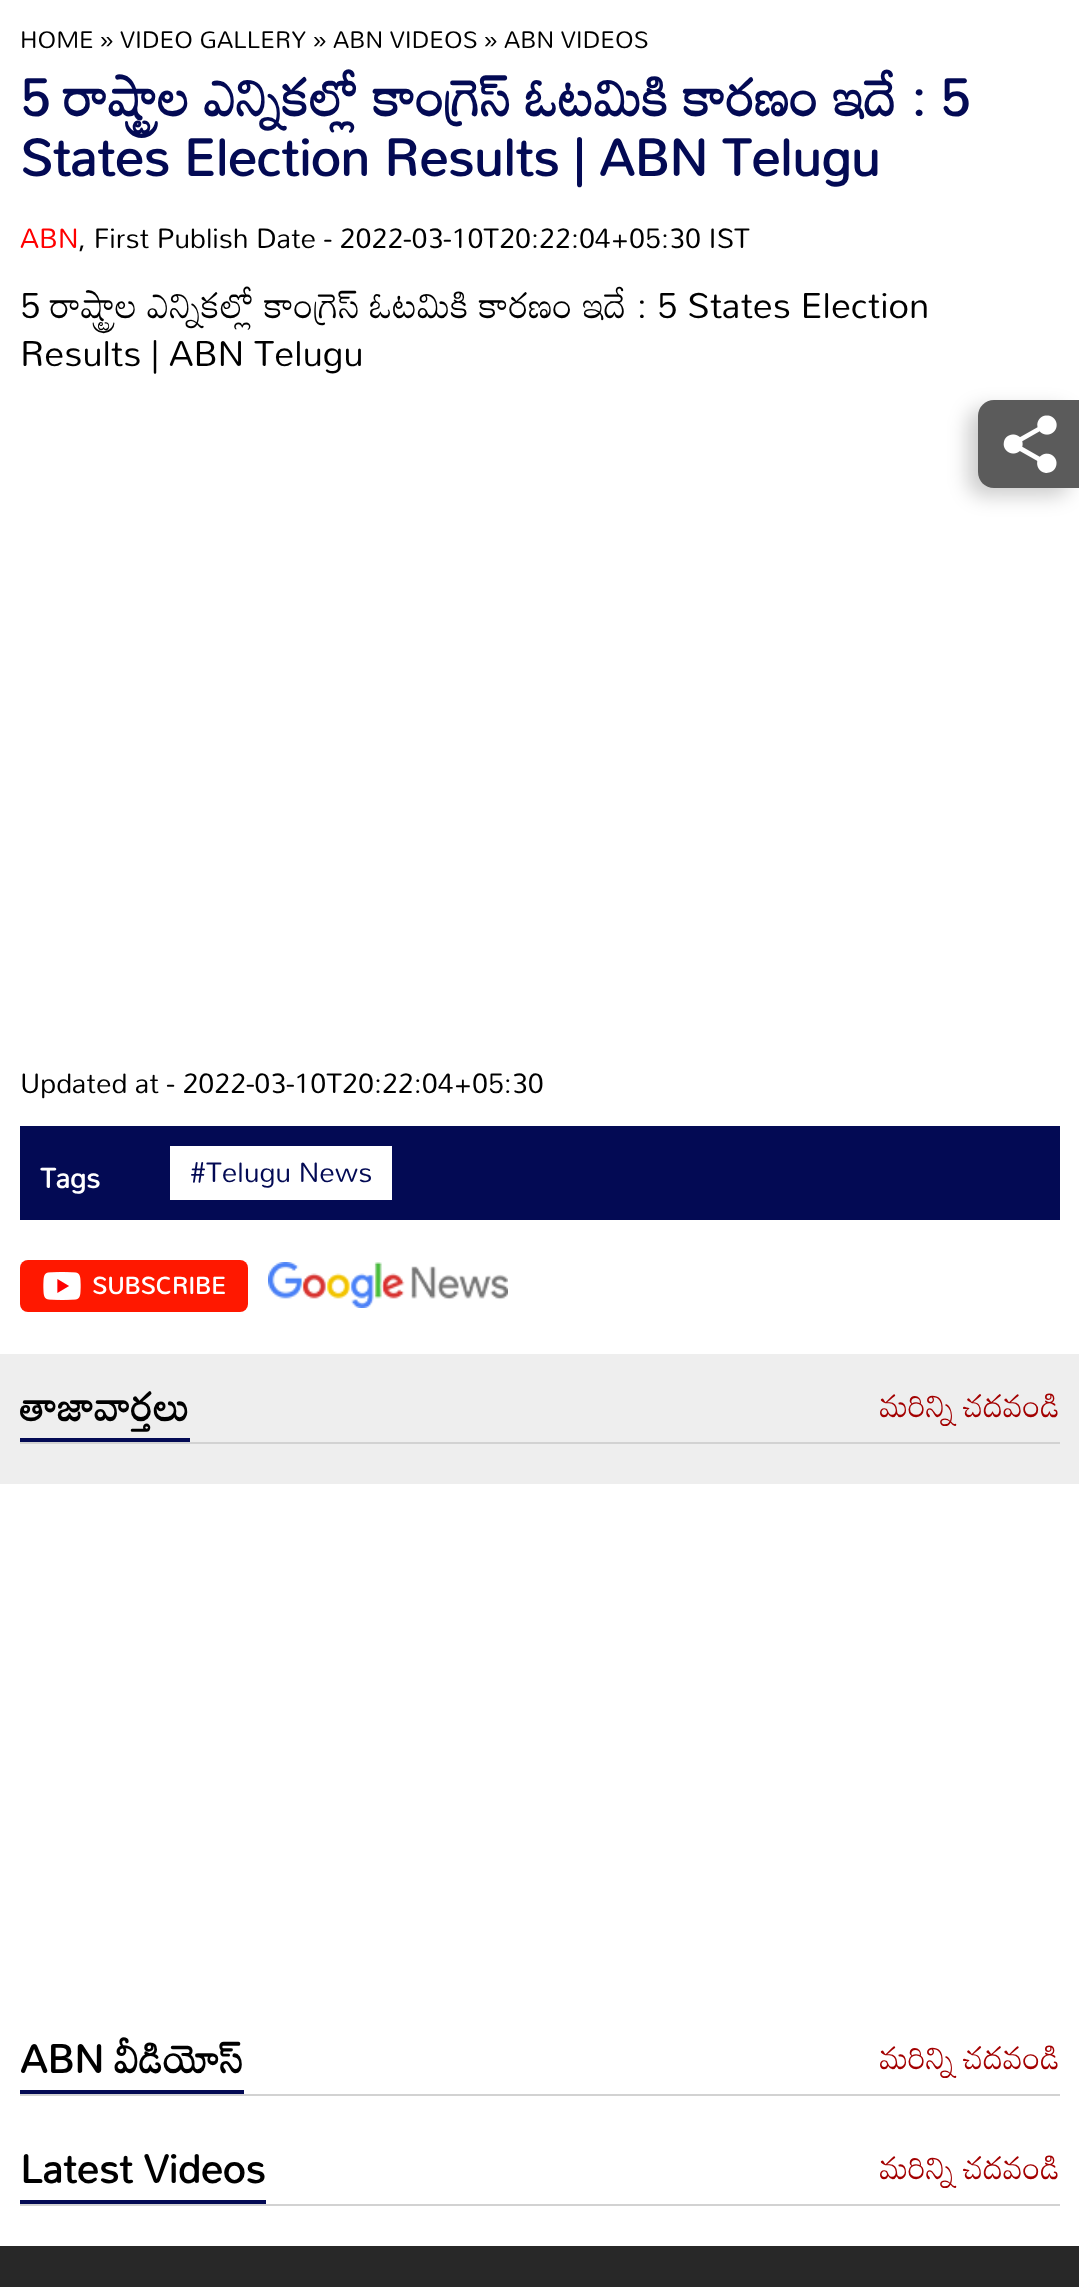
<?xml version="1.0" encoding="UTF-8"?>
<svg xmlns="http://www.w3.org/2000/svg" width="1079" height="2287">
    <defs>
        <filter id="blur1" x="-50%" y="-200%" width="200%" height="500%"><feGaussianBlur stdDeviation="10"/></filter>
    </defs>
    <rect width="100%" height="100%" fill="#FFFFFF"/>
    <text x="20" y="48" font-family="Mandali" font-size="24" fill="#000000">HOME</text>
    <text x="100" y="48" font-family="Liberation Sans" font-size="24" fill="#000000">»</text>
    <text x="120" y="48" font-family="Mandali" font-size="24" fill="#000000">VIDEO GALLERY</text>
    <text x="313" y="48" font-family="Liberation Sans" font-size="24" fill="#000000">»</text>
    <text x="333" y="48" font-family="Mandali" font-size="24" fill="#000000">ABN VIDEOS</text>
    <text x="484" y="48" font-family="Liberation Sans" font-size="24" fill="#000000">»</text>
    <text x="504" y="48" font-family="Mandali" font-size="24" fill="#000000">ABN VIDEOS</text>
    <text font-family="Mandali" font-size="52" font-weight="700" fill="#030A54">
        <tspan x="20" y="116">5 రాష్ట్రాల ఎన్నికల్లో కాంగ్రెస్ ఓటమికి కారణం ఇదే : 5</tspan>
        <tspan x="20" y="176">States Election Results | ABN Telugu</tspan>
    </text>
    <text x="20" y="248" font-family="Mandali" font-size="28" fill="#FF0000">ABN</text>
    <text x="78" y="248" font-family="Mandali" font-size="28" fill="#000000">, First Publish Date - 2022-03-10T20:22:04+05:30 IST</text>
    <text font-family="Mandali" font-size="36" fill="#000000">
        <tspan x="20" y="318">5 రాష్ట్రాల ఎన్నికల్లో కాంగ్రెస్ ఓటమికి కారణం ఇదే : 5 States Election</tspan>
        <tspan x="20" y="366">Results | ABN Telugu</tspan>
    </text>
    <text x="20" y="1093" font-family="Mandali" font-size="28" fill="#000000">Updated at - 2022-03-10T20:22:04+05:30</text>
    <rect x="20" y="1126" width="1040" height="94" fill="#030A54"/>
    <text x="40" y="1188" font-family="Mandali" font-size="28" font-weight="700" fill="#FFFFFF">Tags</text>
    <rect x="170" y="1146" width="222" height="54" fill="#FFFFFF"/>
    <text x="190" y="1182" font-family="Mandali" font-size="28" fill="#030A54">#Telugu News</text>
    <rect x="20" y="1260" width="228" height="52" rx="8" fill="#FF1800"/>
    <image x="43" y="1272" width="38" height="28" href="img_01.png"/>
    <text x="92" y="1294" font-family="Mandali" font-size="24" font-weight="700" fill="#FFFFFF">SUBSCRIBE</text>
    <image x="268" y="1262" width="240" height="46" href="img_02.png"/>
    <rect x="0" y="1354" width="1079" height="130" fill="#EEEEEE"/>
    <rect x="20" y="1442" width="1040" height="2" fill="#D2D2D2"/>
    <rect x="20" y="1438" width="170" height="4" fill="#030A54"/>
    <text x="20" y="1421" font-family="Mandali" font-size="40" font-weight="700" fill="#000000">తాజావార్తలు</text>
    <text x="880" y="1417" font-family="Mandali" font-size="32" fill="#A30000">మరిన్ని చదవండి</text>
    <rect x="20" y="2094" width="1040" height="2" fill="#D2D2D2"/>
    <rect x="20" y="2090" width="224" height="4" fill="#030A54"/>
    <text x="20" y="2073" font-family="Mandali" font-size="40" font-weight="700" fill="#000000">ABN వీడియోస్</text>
    <text x="880" y="2069" font-family="Mandali" font-size="32" fill="#A30000">మరిన్ని చదవండి</text>
    <rect x="20" y="2204" width="1040" height="2" fill="#D2D2D2"/>
    <rect x="20" y="2200" width="246" height="4" fill="#030A54"/>
    <text x="20" y="2183" font-family="Mandali" font-size="40" font-weight="700" fill="#000000">Latest Videos</text>
    <text x="880" y="2179" font-family="Mandali" font-size="32" fill="#A30000">మరిన్ని చదవండి</text>
    <rect x="968" y="408" width="102" height="88" rx="16" fill="#000000" fill-opacity="0.2" filter="url(#blur1)"/>
    <path d="M 994 400 H 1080 V 488 H 994 C 985 488 978 481 978 472 V 416 C 978 407 985 400 994 400 Z" fill="#5B5B5B"/>
    <image x="1003" y="415" width="54" height="58" href="img_03.png"/>
    <rect x="0" y="2246" width="1079" height="41" fill="#282828"/>
</svg>
